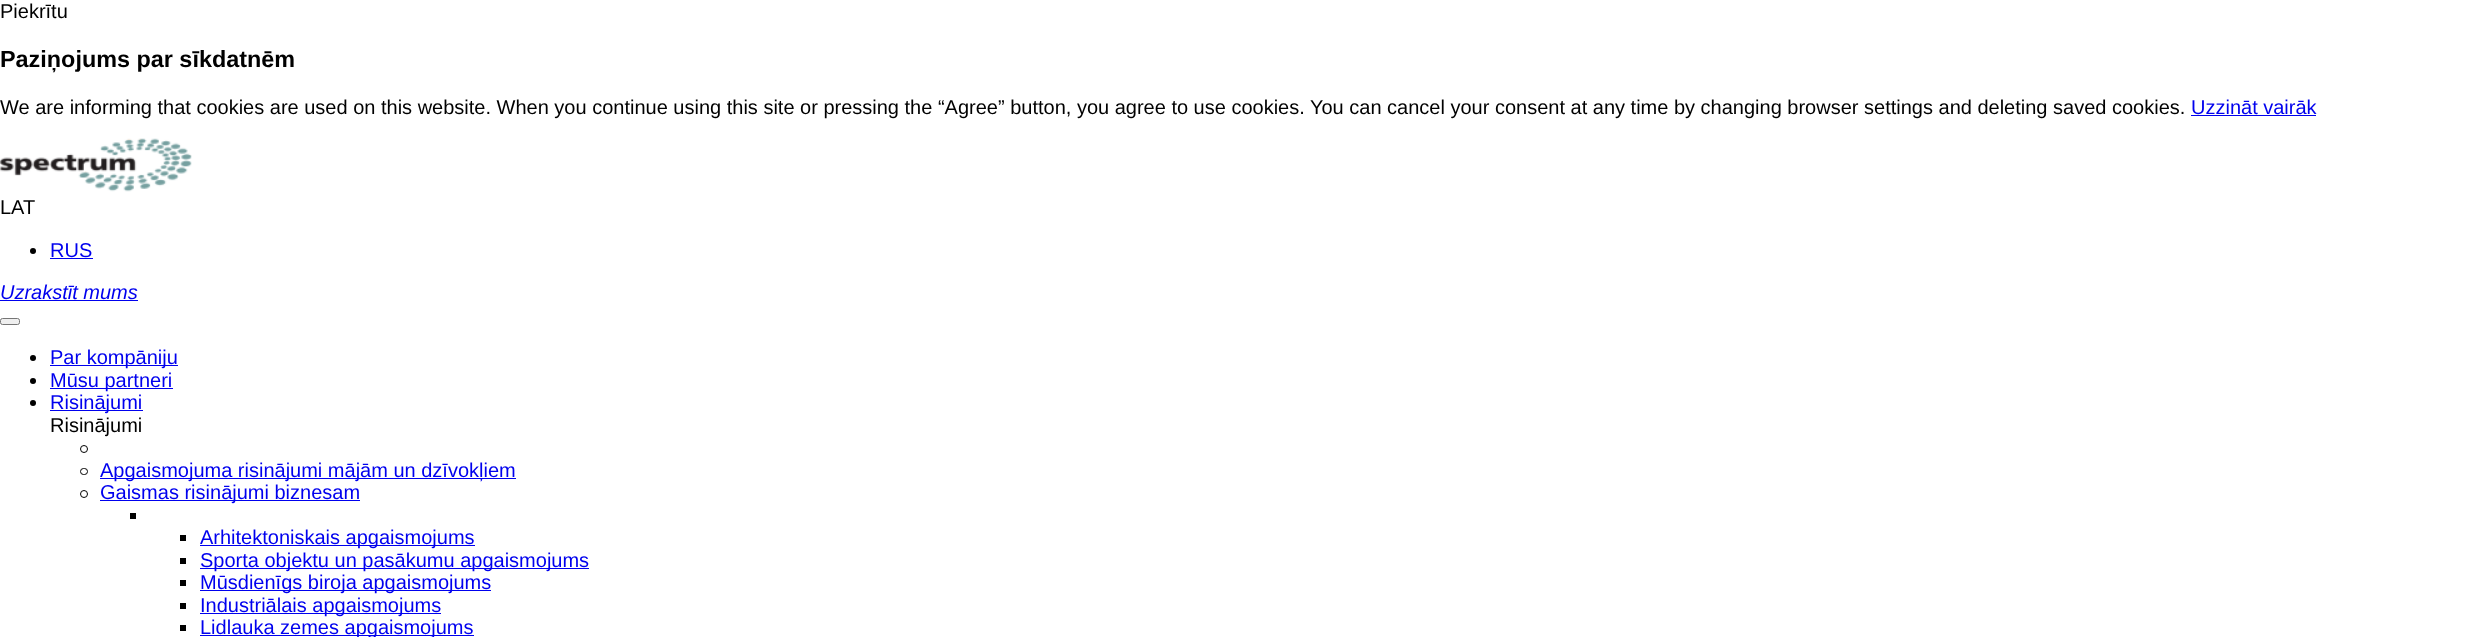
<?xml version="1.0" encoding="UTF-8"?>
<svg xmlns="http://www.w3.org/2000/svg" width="2491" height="637">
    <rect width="100%" height="100%" fill="#FFFFFF"/>
    <text x="0" y="18" font-family="Liberation Sans" font-size="20" fill="#000000">Piekrītu</text>
    <text x="0" y="67" font-family="Liberation Sans" font-size="23.4" font-weight="700" fill="#000000">Paziņojums par sīkdatnēm</text>
    <text x="0" y="114" font-family="Liberation Sans" font-size="20" fill="#000000">We are informing that cookies are used on this website. When you continue using this site or pressing the “Agree” button, you agree to use cookies. You can cancel your consent at any time by changing browser settings and deleting saved cookies.</text>
    <text x="2191" y="114" font-family="Liberation Sans" font-size="20" fill="#0000EE">Uzzināt vairāk</text>
    <rect x="2191" y="115" width="125" height="1" fill="#0000EE"/>
    <image x="0" y="138" width="192" height="54" href="img_01.png"/>
    <text x="0" y="214" font-family="Liberation Sans" font-size="20" fill="#000000">LAT</text>
    <circle cx="33" cy="251" r="3" fill="#000000"/>
    <text x="50" y="257" font-family="Liberation Sans" font-size="20" fill="#0000EE">RUS</text>
    <rect x="50" y="258" width="43" height="1" fill="#0000EE"/>
    <text x="0" y="299" font-family="Liberation Sans" font-size="20" font-style="italic" fill="#0000EE">Uzrakstīt mums</text>
    <rect x="0" y="300" width="138" height="1" fill="#0000EE"/>
    <rect x="0.5" y="318.5" width="19" height="6" rx="2" fill="#EFEFEF" stroke="#767676"/>
    <circle cx="33" cy="358" r="3" fill="#000000"/>
    <rect x="50" y="365" width="128" height="1" fill="#0000EE"/>
    <text x="50" y="364" font-family="Liberation Sans" font-size="20" fill="#0000EE">Par kompāniju</text>
    <circle cx="33" cy="381" r="3" fill="#000000"/>
    <rect x="50" y="388" width="123" height="1" fill="#0000EE"/>
    <text x="50" y="387" font-family="Liberation Sans" font-size="20" fill="#0000EE">Mūsu partneri</text>
    <circle cx="33" cy="403" r="3" fill="#000000"/>
    <rect x="50" y="410" width="93" height="1" fill="#0000EE"/>
    <text x="50" y="409" font-family="Liberation Sans" font-size="20" fill="#0000EE">Risinājumi</text>
    <text x="50" y="432" font-family="Liberation Sans" font-size="20" fill="#000000">Risinājumi</text>
    <circle cx="84" cy="449" r="3.5" fill="none" stroke="#000000"/>
    <rect x="80.5" y="468.5" width="7" height="6" rx="3" fill="none" stroke="#000000"/>
    <rect x="100" y="478" width="416" height="1" fill="#0000EE"/>
    <text x="100" y="477" font-family="Liberation Sans" font-size="20" fill="#0000EE">Apgaismojuma risinājumi mājām un dzīvokļiem</text>
    <circle cx="84" cy="494" r="3.5" fill="none" stroke="#000000"/>
    <rect x="100" y="500" width="260" height="1" fill="#0000EE"/>
    <text x="100" y="499" font-family="Liberation Sans" font-size="20" fill="#0000EE">Gaismas risinājumi biznesam</text>
    <rect x="130" y="513" width="6" height="6" fill="#000000"/>
    <rect x="180" y="535" width="6" height="6" fill="#000000"/>
    <rect x="200" y="545" width="275" height="1" fill="#0000EE"/>
    <text x="200" y="544" font-family="Liberation Sans" font-size="20" fill="#0000EE">Arhitektoniskais apgaismojums</text>
    <rect x="180" y="558" width="6" height="6" fill="#000000"/>
    <rect x="200" y="568" width="389" height="1" fill="#0000EE"/>
    <text x="200" y="567" font-family="Liberation Sans" font-size="20" fill="#0000EE">Sporta objektu un pasākumu apgaismojums</text>
    <rect x="180" y="580" width="6" height="6" fill="#000000"/>
    <rect x="200" y="590" width="291" height="1" fill="#0000EE"/>
    <text x="200" y="589" font-family="Liberation Sans" font-size="20" fill="#0000EE">Mūsdienīgs biroja apgaismojums</text>
    <rect x="180" y="603" width="6" height="6" fill="#000000"/>
    <rect x="200" y="613" width="241" height="1" fill="#0000EE"/>
    <text x="200" y="612" font-family="Liberation Sans" font-size="20" fill="#0000EE">Industriālais apgaismojums</text>
    <rect x="180" y="625" width="6" height="6" fill="#000000"/>
    <rect x="200" y="635" width="274" height="1" fill="#0000EE"/>
    <text x="200" y="634" font-family="Liberation Sans" font-size="20" fill="#0000EE">Lidlauka zemes apgaismojums</text>
</svg>
